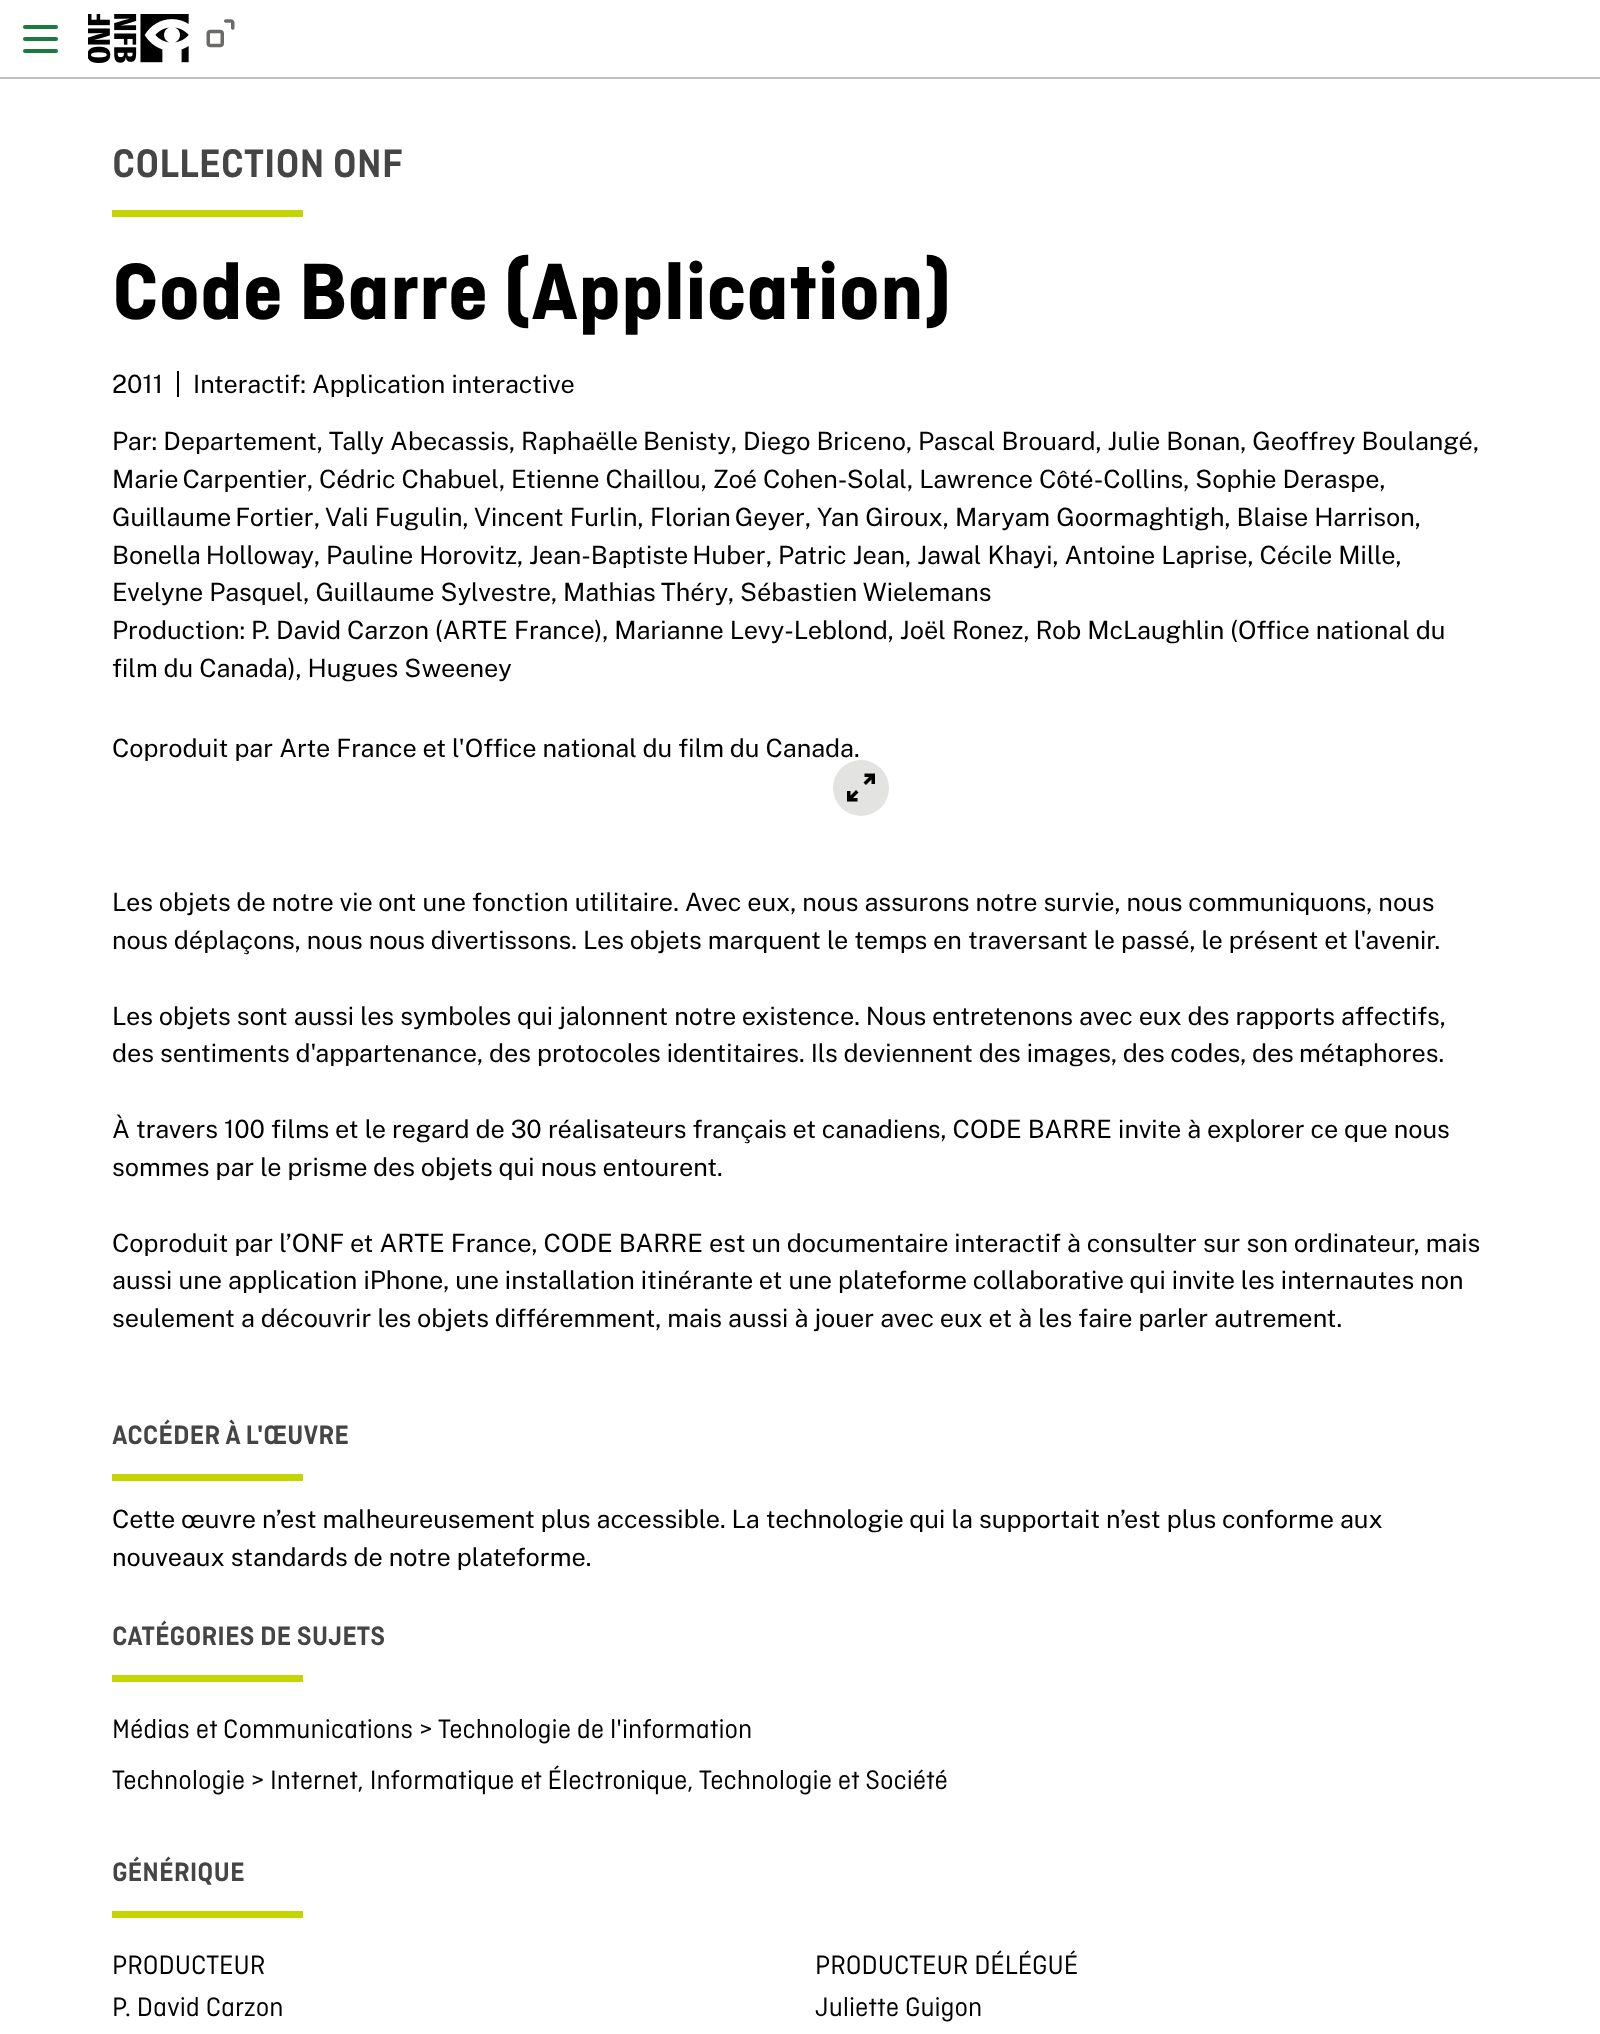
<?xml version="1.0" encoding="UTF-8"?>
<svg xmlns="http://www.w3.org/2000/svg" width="1600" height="2034">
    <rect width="100%" height="100%" fill="#FFFFFF"/>
    <rect x="0" y="77" width="1600" height="2" fill="#C0BFBE"/>
    <rect x="23" y="37" width="35" height="4" rx="2" fill="#1C7A3E"/>
    <rect x="23" y="25" width="35" height="4" rx="2" fill="#1C7A3E"/>
    <rect x="23" y="49" width="35" height="4" rx="2" fill="#1C7A3E"/>
    <image x="88" y="14" width="101" height="49" href="img_01.png"/>
    <image x="206" y="19" width="29" height="29" href="img_02.png"/>
    <text x="112" y="177" font-family="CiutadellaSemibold" font-size="42" font-weight="600" fill="#464545">COLLECTION ONF</text>
    <rect x="112" y="210" width="191" height="7" fill="#C4D600"/>
    <text x="112" y="319" font-family="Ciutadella" font-size="84" font-weight="700" fill="#000000">Code Barre (Application)</text>
    <text x="112" y="393" font-family="Public Sans" font-size="25.2" fill="#000000">2011</text>
    <rect x="177" y="371" width="2" height="26" fill="#000000"/>
    <text x="193" y="393" font-family="Public Sans" font-size="25.2" fill="#000000">Interactif: Application interactive</text>
    <text x="112" y="450" font-family="Public Sans" font-size="25.2" fill="#000000">Par: Departement, Tally Abecassis,</text>
    <text x="521" y="450" word-spacing="-1" font-family="Public Sans" font-size="25.2" fill="#000000">Raphaëlle Benisty</text>
    <text x="731" y="450" font-family="Public Sans" font-size="25.2" fill="#000000">, Diego Briceno, Pascal Brouard, Julie Bonan, Geoffrey Boulangé,</text>
    <text x="112" y="488" word-spacing="-2" font-family="Public Sans" font-size="25.2" fill="#000000">Marie Carpentier</text>
    <text x="307" y="488" font-family="Public Sans" font-size="25.2" fill="#000000">, Cédric Chabuel, Etienne Chaillou, Zoé Cohen-Solal, Lawrence Côté-Collins, Sophie Deraspe,</text>
    <text x="112" y="526" word-spacing="-2" font-family="Public Sans" font-size="25.2" fill="#000000">Guillaume Fortier</text>
    <text x="314" y="526" font-family="Public Sans" font-size="25.2" fill="#000000">,</text>
    <text x="325" y="526" font-family="Public Sans" font-size="25.2" fill="#000000">Vali Fugulin,</text>
    <text x="474" y="526" font-family="Public Sans" font-size="25.2" fill="#000000">Vincent Furlin,</text>
    <text x="650" y="526" word-spacing="-2" font-family="Public Sans" font-size="25.2" fill="#000000">Florian Geyer</text>
    <text x="805" y="526" font-family="Public Sans" font-size="25.2" fill="#000000">, Yan Giroux, Maryam Goormaghtigh, Blaise Harrison,</text>
    <text x="112" y="564" word-spacing="-1" font-family="Public Sans" font-size="25.2" fill="#000000">Bonella Holloway</text>
    <text x="314" y="564" font-family="Public Sans" font-size="25.2" fill="#000000">, Pauline Horovitz,</text>
    <text x="529" y="564" word-spacing="-2" font-family="Public Sans" font-size="25.2" fill="#000000">Jean-Baptiste Huber</text>
    <text x="766" y="564" font-family="Public Sans" font-size="25.2" fill="#000000">, Patric Jean, Jawal Khayi, Antoine Laprise, Cécile Mille,</text>
    <text x="112" y="601" font-family="Public Sans" font-size="25.2" fill="#000000">Evelyne Pasquel, Guillaume Sylvestre,</text>
    <text x="563" y="601" word-spacing="-1" font-family="Public Sans" font-size="25.2" fill="#000000">Mathias Théry</text>
    <text x="728" y="601" font-family="Public Sans" font-size="25.2" fill="#000000">, Sébastien Wielemans</text>
    <text font-family="Public Sans" font-size="25.2" fill="#000000">
        <tspan x="112" y="639">Production: P. David Carzon (ARTE France), Marianne Levy-Leblond, Joël Ronez, Rob McLaughlin (Office national du</tspan>
        <tspan x="112" y="677">film du Canada), Hugues Sweeney</tspan>
    </text>
    <text x="112" y="757" font-family="Public Sans" font-size="25.2" fill="#000000">Coproduit par Arte France et l'Office national du film du Canada.</text>
    <circle cx="861" cy="788" r="28" fill="#E3E3E2"/>
    <image x="847" y="773" width="28" height="29" href="img_03.png"/>
    <text font-family="Public Sans" font-size="25.2" fill="#000000">
        <tspan x="112" y="911">Les objets de notre vie ont une fonction utilitaire. Avec eux, nous assurons notre survie, nous communiquons, nous</tspan>
        <tspan x="112" y="949">nous déplaçons, nous nous divertissons.</tspan>
    </text>
    <text x="583" y="949" font-family="Public Sans" font-size="25.2" fill="#000000">Les objets marquent le temps en traversant le passé, le présent et l'avenir.</text>
    <text font-family="Public Sans" font-size="25.2" fill="#000000">
        <tspan x="112" y="1025">Les objets sont aussi les symboles qui jalonnent notre existence. Nous entretenons avec eux des rapports affectifs,</tspan>
        <tspan x="112" y="1062">des sentiments d'appartenance,</tspan>
    </text>
    <text x="489" y="1062" font-family="Public Sans" font-size="25.2" fill="#000000">des protocoles identitaires. Ils deviennent des images, des codes, des</text>
    <text x="1299" y="1062" font-family="Public Sans" font-size="25.2" fill="#000000">métaphores.</text>
    <text font-family="Public Sans" font-size="25.2" fill="#000000">
        <tspan x="112" y="1138">À travers 100 films et le regard de 30 réalisateurs français et canadiens, CODE BARRE invite à explorer ce que nous</tspan>
        <tspan x="112" y="1176">sommes par le prisme des objets qui nous entourent.</tspan>
    </text>
    <text x="112" y="1252" font-family="Public Sans" font-size="25.2" fill="#000000">Coproduit par l’ONF et ARTE France, CODE BARRE</text>
    <text x="709" y="1252" font-family="Public Sans" font-size="25.2" fill="#000000">est un documentaire interactif à consulter sur son ordinateur, mais</text>
    <text font-family="Public Sans" font-size="25.2" fill="#000000">
        <tspan x="112" y="1289">aussi une application iPhone, une installation itinérante et une plateforme collaborative qui invite les internautes non</tspan>
        <tspan x="112" y="1327">seulement a découvrir les objets différemment, mais aussi à jouer avec eux et à les faire parler autrement.</tspan>
    </text>
    <text x="112" y="1444" font-family="CiutadellaSemibold" font-size="28" font-weight="600" fill="#464545">ACCÉDER À L'ŒUVRE</text>
    <rect x="112" y="1474" width="191" height="7" fill="#C4D600"/>
    <text font-family="Public Sans" font-size="25.2" fill="#000000">
        <tspan x="112" y="1528">Cette œuvre n’est malheureusement plus accessible. La technologie qui la supportait n’est plus conforme aux</tspan>
        <tspan x="112" y="1566">nouveaux standards de notre plateforme.</tspan>
    </text>
    <text x="112" y="1645" font-family="CiutadellaSemibold" font-size="28" font-weight="600" fill="#464545">CATÉGORIES DE SUJETS</text>
    <rect x="112" y="1675" width="191" height="7" fill="#C4D600"/>
    <text x="112" y="1738" font-family="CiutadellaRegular" font-size="28" fill="#000000">Médias et Communications</text>
    <text x="419" y="1738" font-family="CiutadellaRegular" font-size="28" fill="#000000">&gt;</text>
    <text x="438" y="1738" font-family="CiutadellaRegular" font-size="28" fill="#000000">Technologie de l'information</text>
    <text x="112" y="1789" font-family="CiutadellaRegular" font-size="28" fill="#000000">Technologie &gt; Internet, Informatique et Électronique,</text>
    <text x="699" y="1789" font-family="CiutadellaRegular" font-size="28" fill="#000000">Technologie et Société</text>
    <text x="112" y="1881" font-family="CiutadellaSemibold" font-size="28" font-weight="600" fill="#464545">GÉNÉRIQUE</text>
    <rect x="112" y="1911" width="191" height="7" fill="#C4D600"/>
    <text font-family="CiutadellaRegular" font-size="28" fill="#000000">
        <tspan x="112" y="1974">PRODUCTEUR</tspan>
        <tspan x="112" y="2016">P. David Carzon</tspan>
    </text>
    <text font-family="CiutadellaRegular" font-size="28" fill="#000000">
        <tspan x="815" y="1974">PRODUCTEUR DÉLÉGUÉ</tspan>
        <tspan x="815" y="2016">Juliette Guigon</tspan>
    </text>
</svg>
